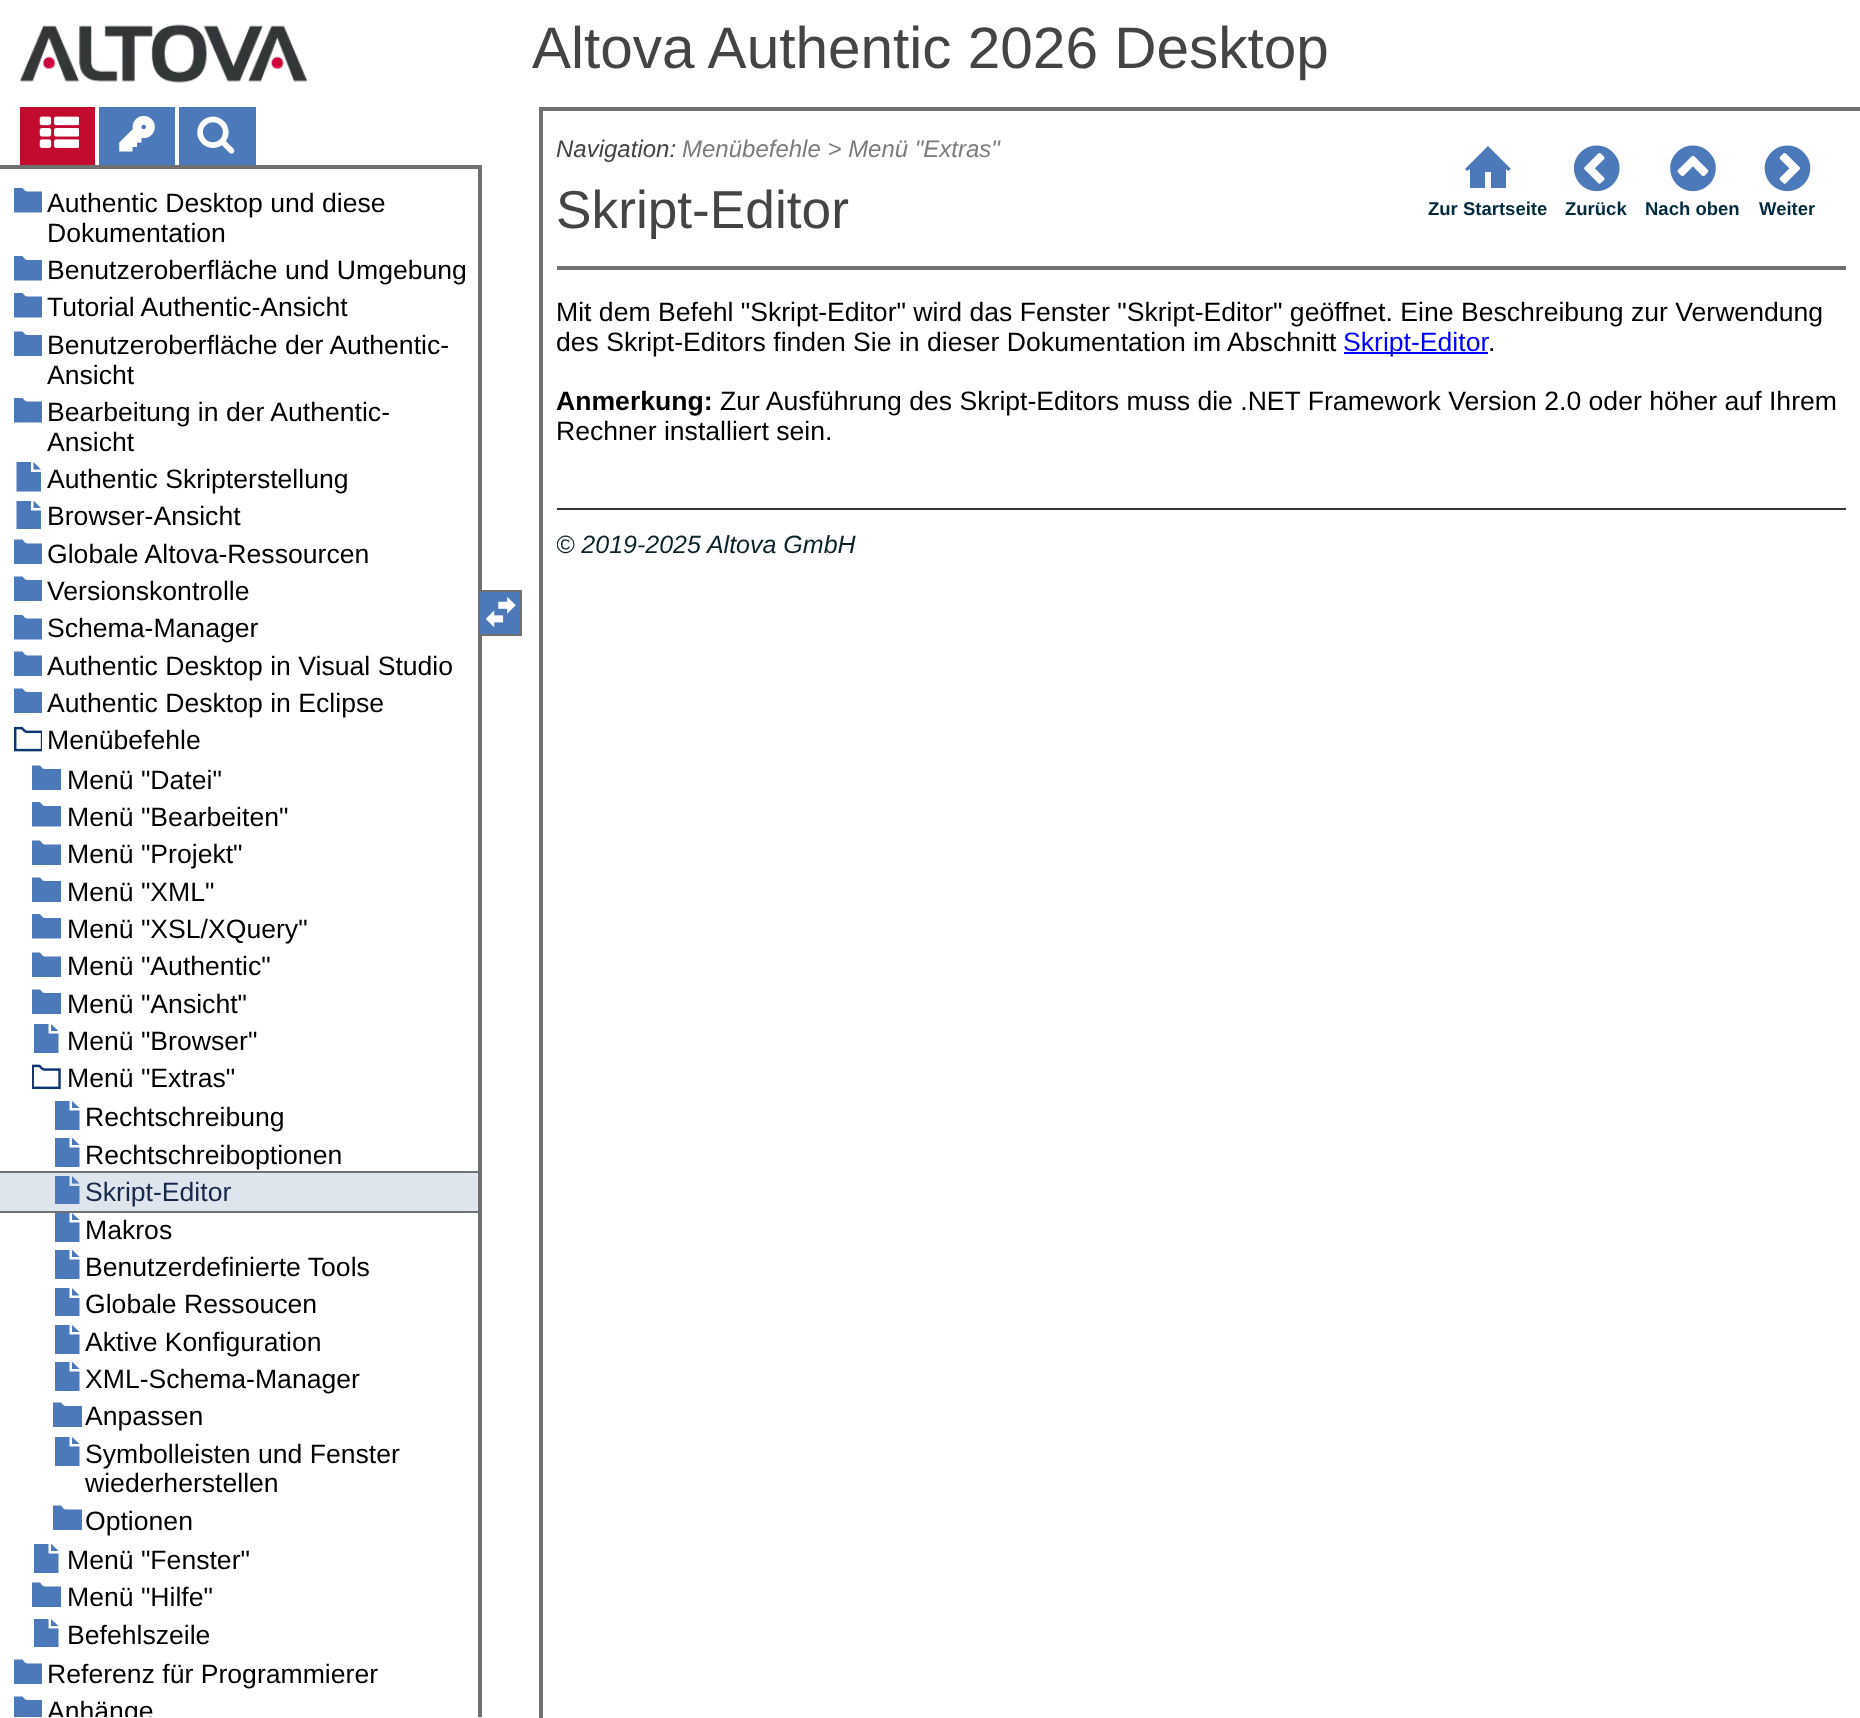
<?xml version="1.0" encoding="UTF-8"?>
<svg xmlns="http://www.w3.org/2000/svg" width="1860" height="1718">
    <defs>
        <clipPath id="clip1"><rect x="14" y="186" width="28" height="29"/></clipPath>
        <clipPath id="clip2"><rect x="14" y="254" width="28" height="30"/></clipPath>
        <clipPath id="clip3"><rect x="14" y="291" width="28" height="29"/></clipPath>
        <clipPath id="clip4"><rect x="14" y="329" width="28" height="28"/></clipPath>
        <clipPath id="clip5"><rect x="14" y="396" width="28" height="29"/></clipPath>
        <clipPath id="clip6"><rect x="14" y="501" width="28" height="28"/></clipPath>
        <clipPath id="clip7"><rect x="14" y="537" width="28" height="30"/></clipPath>
        <clipPath id="clip8"><rect x="14" y="574" width="28" height="30"/></clipPath>
        <clipPath id="clip9"><rect x="14" y="613" width="28" height="28"/></clipPath>
        <clipPath id="clip10"><rect x="14" y="649" width="28" height="30"/></clipPath>
        <clipPath id="clip11"><rect x="14" y="686" width="28" height="30"/></clipPath>
        <clipPath id="clip12"><rect x="32" y="763" width="29" height="30"/></clipPath>
        <clipPath id="clip13"><rect x="32" y="800" width="29" height="30"/></clipPath>
        <clipPath id="clip14"><rect x="32" y="838" width="29" height="28"/></clipPath>
        <clipPath id="clip15"><rect x="32" y="875" width="29" height="30"/></clipPath>
        <clipPath id="clip16"><rect x="32" y="912" width="29" height="30"/></clipPath>
        <clipPath id="clip17"><rect x="32" y="950" width="29" height="28"/></clipPath>
        <clipPath id="clip18"><rect x="32" y="987" width="29" height="30"/></clipPath>
        <clipPath id="clip19"><rect x="53" y="1138" width="29" height="29"/></clipPath>
        <clipPath id="clip20"><rect x="53" y="1176" width="29" height="28"/></clipPath>
        <clipPath id="clip21"><rect x="0" y="1097" width="478" height="443"/></clipPath>
        <clipPath id="clip22"><rect x="53" y="1250" width="29" height="29"/></clipPath>
        <clipPath id="clip23"><rect x="53" y="1288" width="29" height="28"/></clipPath>
        <clipPath id="clip24"><rect x="53" y="1362" width="29" height="29"/></clipPath>
        <clipPath id="clip25"><rect x="53" y="1400" width="29" height="30"/></clipPath>
        <clipPath id="clip26"><rect x="53" y="1503" width="29" height="30"/></clipPath>
        <clipPath id="clip27"><rect x="32" y="1544" width="29" height="29"/></clipPath>
        <clipPath id="clip28"><rect x="32" y="1580" width="29" height="30"/></clipPath>
        <clipPath id="clip29"><rect x="32" y="1619" width="29" height="28"/></clipPath>
        <clipPath id="clip30"><rect x="14" y="1657" width="28" height="30"/></clipPath>
        <clipPath id="clip31"><rect x="14" y="1694" width="28" height="23"/></clipPath>
        <clipPath id="clip32"><rect x="0" y="168" width="478" height="1549"/></clipPath>
        <clipPath id="clip33"><rect x="557" y="270" width="1289" height="320"/></clipPath>
    </defs>
    <rect width="100%" height="100%" fill="#FFFFFF"/>
    <image x="20" y="24" width="287" height="59" href="img_01.png"/>
    <text x="532" y="68" font-family="Liberation Sans" font-size="58.5" fill="#444444">Altova Authentic 2026 Desktop</text>
    <rect x="20" y="107" width="75" height="58" fill="#C20B2F"/>
    <rect x="99" y="107" width="76" height="58" fill="#4C79B9"/>
    <rect x="179" y="107" width="77" height="58" fill="#4C79B9"/>
    <image x="39" y="116" width="40" height="32" href="img_02.png"/>
    <image x="119" y="115" width="36" height="37" href="img_03.png"/>
    <image x="197" y="116" width="38" height="38" href="img_04.png"/>
    <rect x="0" y="165" width="481" height="4" fill="#707070"/>
    <rect x="478" y="165" width="4" height="1552" fill="#707070"/>
    <g clip-path="url(#clip1)">
        <path d="M 27.5 191.5 C 25.5 191.5 24.5 190.5 22.5 188 H 14 V 212.5 H 43.5 V 191.5 Z" fill="#4C79B9"/>
    </g>
    <text font-family="Liberation Sans" font-size="26.6" fill="#000000">
        <tspan x="47" y="212">Authentic Desktop und diese</tspan>
        <tspan x="47" y="242">Dokumentation</tspan>
    </text>
    <g clip-path="url(#clip2)">
        <path d="M 27.5 260 C 25.5 260 24.5 258.5 22.5 256 H 14 V 280.5 H 43.5 V 260 Z" fill="#4C79B9"/>
    </g>
    <text x="47" y="279" font-family="Liberation Sans" font-size="26.6" fill="#000000">Benutzeroberfläche und Umgebung</text>
    <g clip-path="url(#clip3)">
        <path d="M 27.5 296.5 C 25.5 296.5 24.5 295.5 22.5 293 H 14 V 317.5 H 43.5 V 296.5 Z" fill="#4C79B9"/>
    </g>
    <text x="47" y="316" font-family="Liberation Sans" font-size="26.6" fill="#000000">Tutorial Authentic-Ansicht</text>
    <g clip-path="url(#clip4)">
        <path d="M 27.5 335 C 25.5 335 24.5 334 22.5 331.5 H 14 V 356 H 43.5 V 335 Z" fill="#4C79B9"/>
    </g>
    <text font-family="Liberation Sans" font-size="26.6" fill="#000000">
        <tspan x="47" y="354">Benutzeroberfläche der Authentic-</tspan>
        <tspan x="47" y="384">Ansicht</tspan>
    </text>
    <g clip-path="url(#clip5)">
        <path d="M 27.5 401.5 C 25.5 401.5 24.5 400.5 22.5 398 H 14 V 422.5 H 43.5 V 401.5 Z" fill="#4C79B9"/>
    </g>
    <text font-family="Liberation Sans" font-size="26.6" fill="#000000">
        <tspan x="47" y="421">Bearbeitung in der Authentic-</tspan>
        <tspan x="47" y="451">Ansicht</tspan>
    </text>
    <path d="M 41 469.5 H 33.5 V 462 Z M 31 472 V 462 H 16.5 V 491.5 H 41 V 472 Z" fill="#4C79B9"/>
    <text x="47" y="488" font-family="Liberation Sans" font-size="26.6" fill="#000000">Authentic Skripterstellung</text>
    <g clip-path="url(#clip6)">
        <path d="M 41 508 H 33.5 V 500.5 Z M 31 510.5 V 500.5 H 16.5 V 530 H 41 V 510.5 Z" fill="#4C79B9"/>
    </g>
    <text x="47" y="525" font-family="Liberation Sans" font-size="26.6" fill="#000000">Browser-Ansicht</text>
    <g clip-path="url(#clip7)">
        <path d="M 27.5 543.5 C 25.5 543.5 24.5 542 22.5 539.5 H 14 V 564 H 43.5 V 543.5 Z" fill="#4C79B9"/>
    </g>
    <text x="47" y="563" font-family="Liberation Sans" font-size="26.6" fill="#000000">Globale Altova-Ressourcen</text>
    <g clip-path="url(#clip8)">
        <path d="M 27.5 580 C 25.5 580 24.5 579 22.5 576.5 H 14 V 601 H 43.5 V 580 Z" fill="#4C79B9"/>
    </g>
    <text x="47" y="600" font-family="Liberation Sans" font-size="26.6" fill="#000000">Versionskontrolle</text>
    <g clip-path="url(#clip9)">
        <path d="M 27.5 618.5 C 25.5 618.5 24.5 617.5 22.5 615 H 14 V 639.5 H 43.5 V 618.5 Z" fill="#4C79B9"/>
    </g>
    <text x="47" y="637" font-family="Liberation Sans" font-size="26.6" fill="#000000">Schema-Manager</text>
    <g clip-path="url(#clip10)">
        <path d="M 27.5 655.5 C 25.5 655.5 24.5 654 22.5 651.5 H 14 V 676 H 43.5 V 655.5 Z" fill="#4C79B9"/>
    </g>
    <text x="47" y="675" font-family="Liberation Sans" font-size="26.6" fill="#000000">Authentic Desktop in Visual Studio</text>
    <g clip-path="url(#clip11)">
        <path d="M 27.5 692 C 25.5 692 24.5 691 22.5 688.5 H 14 V 713 H 43.5 V 692 Z" fill="#4C79B9"/>
    </g>
    <text x="47" y="712" font-family="Liberation Sans" font-size="26.6" fill="#000000">Authentic Desktop in Eclipse</text>
    <image x="14" y="726" width="28" height="26" href="img_05.png"/>
    <text x="47" y="749" font-family="Liberation Sans" font-size="26.6" fill="#000000">Menübefehle</text>
    <g clip-path="url(#clip12)">
        <path d="M 45 769 C 43 769 42 768 40 765.5 H 31.5 V 790 H 61 V 769 Z" fill="#4C79B9"/>
    </g>
    <text x="67" y="789" font-family="Liberation Sans" font-size="26.6" fill="#000000">Menü "Datei"</text>
    <g clip-path="url(#clip13)">
        <path d="M 45 806 C 43 806 42 804.5 40 802 H 31.5 V 826.5 H 61 V 806 Z" fill="#4C79B9"/>
    </g>
    <text x="67" y="826" font-family="Liberation Sans" font-size="26.6" fill="#000000">Menü "Bearbeiten"</text>
    <g clip-path="url(#clip14)">
        <path d="M 45 844.5 C 43 844.5 42 843 40 840.5 H 31.5 V 865 H 61 V 844.5 Z" fill="#4C79B9"/>
    </g>
    <text x="67" y="863" font-family="Liberation Sans" font-size="26.6" fill="#000000">Menü "Projekt"</text>
    <g clip-path="url(#clip15)">
        <path d="M 45 881 C 43 881 42 880 40 877.5 H 31.5 V 902 H 61 V 881 Z" fill="#4C79B9"/>
    </g>
    <text x="67" y="901" font-family="Liberation Sans" font-size="26.6" fill="#000000">Menü "XML"</text>
    <g clip-path="url(#clip16)">
        <path d="M 45 918 C 43 918 42 916.5 40 914 H 31.5 V 938.5 H 61 V 918 Z" fill="#4C79B9"/>
    </g>
    <text x="67" y="938" font-family="Liberation Sans" font-size="26.6" fill="#000000">Menü "XSL/XQuery"</text>
    <g clip-path="url(#clip17)">
        <path d="M 45 956.5 C 43 956.5 42 955 40 952.5 H 31.5 V 977 H 61 V 956.5 Z" fill="#4C79B9"/>
    </g>
    <text x="67" y="975" font-family="Liberation Sans" font-size="26.6" fill="#000000">Menü "Authentic"</text>
    <g clip-path="url(#clip18)">
        <path d="M 45 993 C 43 993 42 992 40 989.5 H 31.5 V 1014 H 61 V 993 Z" fill="#4C79B9"/>
    </g>
    <text x="67" y="1013" font-family="Liberation Sans" font-size="26.6" fill="#000000">Menü "Ansicht"</text>
    <path d="M 58.5 1031 H 51 V 1024 Z M 48.5 1033.5 V 1024 H 34 V 1053 H 58.5 V 1033.5 Z" fill="#4C79B9"/>
    <text x="67" y="1050" font-family="Liberation Sans" font-size="26.6" fill="#000000">Menü "Browser"</text>
    <image x="32" y="1064" width="29" height="26" href="img_06.png"/>
    <text x="67" y="1087" font-family="Liberation Sans" font-size="26.6" fill="#000000">Menü "Extras"</text>
    <path d="M 79.5 1108 H 72 V 1101 Z M 69.5 1110.5 V 1101 H 55 V 1130 H 79.5 V 1110.5 Z" fill="#4C79B9"/>
    <text x="85" y="1126" font-family="Liberation Sans" font-size="26.6" fill="#000000">Rechtschreibung</text>
    <g clip-path="url(#clip19)">
        <path d="M 79.5 1145 H 72 V 1137.5 Z M 69.5 1147.5 V 1137.5 H 55 V 1167 H 79.5 V 1147.5 Z" fill="#4C79B9"/>
    </g>
    <text x="85" y="1164" font-family="Liberation Sans" font-size="26.6" fill="#000000">Rechtschreiboptionen</text>
    <rect x="0" y="1173" width="478" height="38" fill="#DFE5EC"/>
    <g clip-path="url(#clip20)">
        <path d="M 79.5 1183.5 H 72 V 1176 Z M 69.5 1186 V 1176 H 55 V 1205.5 H 79.5 V 1186 Z" fill="#4C79B9"/>
    </g>
    <g clip-path="url(#clip21)">
        <rect x="-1" y="1172" width="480" height="40" fill="none" stroke="#707070" stroke-width="2"/>
    </g>
    <text x="85" y="1201" font-family="Liberation Sans" font-size="26.6" fill="#16284B">Skript-Editor</text>
    <path d="M 79.5 1220 H 72 V 1213 Z M 69.5 1222.5 V 1213 H 55 V 1242 H 79.5 V 1222.5 Z" fill="#4C79B9"/>
    <text x="85" y="1239" font-family="Liberation Sans" font-size="26.6" fill="#000000">Makros</text>
    <g clip-path="url(#clip22)">
        <path d="M 79.5 1257 H 72 V 1249.5 Z M 69.5 1259.5 V 1249.5 H 55 V 1279 H 79.5 V 1259.5 Z" fill="#4C79B9"/>
    </g>
    <text x="85" y="1276" font-family="Liberation Sans" font-size="26.6" fill="#000000">Benutzerdefinierte Tools</text>
    <g clip-path="url(#clip23)">
        <path d="M 79.5 1295.5 H 72 V 1288 Z M 69.5 1298 V 1288 H 55 V 1317.5 H 79.5 V 1298 Z" fill="#4C79B9"/>
    </g>
    <text x="85" y="1313" font-family="Liberation Sans" font-size="26.6" fill="#000000">Globale Ressoucen</text>
    <path d="M 79.5 1332 H 72 V 1325 Z M 69.5 1334.5 V 1325 H 55 V 1354 H 79.5 V 1334.5 Z" fill="#4C79B9"/>
    <text x="85" y="1351" font-family="Liberation Sans" font-size="26.6" fill="#000000">Aktive Konfiguration</text>
    <g clip-path="url(#clip24)">
        <path d="M 79.5 1369 H 72 V 1361.5 Z M 69.5 1371.5 V 1361.5 H 55 V 1391 H 79.5 V 1371.5 Z" fill="#4C79B9"/>
    </g>
    <text x="85" y="1388" font-family="Liberation Sans" font-size="26.6" fill="#000000">XML-Schema-Manager</text>
    <g clip-path="url(#clip25)">
        <path d="M 66 1406 C 64 1406 63 1405 61 1402.5 H 52.5 V 1427 H 82 V 1406 Z" fill="#4C79B9"/>
    </g>
    <text x="85" y="1425" font-family="Liberation Sans" font-size="26.6" fill="#000000">Anpassen</text>
    <path d="M 79.5 1444 H 72 V 1437 Z M 69.5 1446.5 V 1437 H 55 V 1466 H 79.5 V 1446.5 Z" fill="#4C79B9"/>
    <text font-family="Liberation Sans" font-size="26.6" fill="#000000">
        <tspan x="85" y="1463">Symbolleisten und Fenster</tspan>
        <tspan x="85" y="1492">wiederherstellen</tspan>
    </text>
    <g clip-path="url(#clip26)">
        <path d="M 66 1509.5 C 64 1509.5 63 1508 61 1505.5 H 52.5 V 1530 H 82 V 1509.5 Z" fill="#4C79B9"/>
    </g>
    <text x="85" y="1530" font-family="Liberation Sans" font-size="26.6" fill="#000000">Optionen</text>
    <g clip-path="url(#clip27)">
        <path d="M 58.5 1551 H 51 V 1543.5 Z M 48.5 1553.5 V 1543.5 H 34 V 1573 H 58.5 V 1553.5 Z" fill="#4C79B9"/>
    </g>
    <text x="67" y="1569" font-family="Liberation Sans" font-size="26.6" fill="#000000">Menü "Fenster"</text>
    <g clip-path="url(#clip28)">
        <path d="M 45 1586.5 C 43 1586.5 42 1585 40 1582.5 H 31.5 V 1607 H 61 V 1586.5 Z" fill="#4C79B9"/>
    </g>
    <text x="67" y="1606" font-family="Liberation Sans" font-size="26.6" fill="#000000">Menü "Hilfe"</text>
    <g clip-path="url(#clip29)">
        <path d="M 58.5 1626 H 51 V 1619 Z M 48.5 1628.5 V 1619 H 34 V 1648 H 58.5 V 1628.5 Z" fill="#4C79B9"/>
    </g>
    <text x="67" y="1644" font-family="Liberation Sans" font-size="26.6" fill="#000000">Befehlszeile</text>
    <g clip-path="url(#clip30)">
        <path d="M 27.5 1663.5 C 25.5 1663.5 24.5 1662 22.5 1659.5 H 14 V 1684 H 43.5 V 1663.5 Z" fill="#4C79B9"/>
    </g>
    <text x="47" y="1683" font-family="Liberation Sans" font-size="26.6" fill="#000000">Referenz für Programmierer</text>
    <g clip-path="url(#clip31)">
        <path d="M 27.5 1700 C 25.5 1700 24.5 1699 22.5 1696.5 H 14 V 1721 H 43.5 V 1700 Z" fill="#4C79B9"/>
    </g>
    <g clip-path="url(#clip32)">
        <text x="47" y="1720" font-family="Liberation Sans" font-size="26.6" fill="#000000">Anhänge</text>
    </g>
    <rect x="480" y="592" width="40" height="42" fill="#4C79B9"/>
    <rect x="480" y="590" width="42" height="2" fill="#707070"/>
    <rect x="520" y="590" width="2" height="45" fill="#707070"/>
    <rect x="480" y="634" width="42" height="2" fill="#707070"/>
    <image x="485" y="597" width="31" height="31" href="img_07.png"/>
    <rect x="539" y="107" width="1321" height="4" fill="#707070"/>
    <rect x="539" y="107" width="4" height="1611" fill="#707070"/>
    <text x="556" y="157" font-family="Liberation Sans" font-size="24" font-style="italic" fill="#444444">Navigation:</text>
    <text x="682" y="157" font-family="Liberation Sans" font-size="24" font-style="italic" fill="#7C7C7C">Menübefehle &gt; Menü "Extras"</text>
    <text x="556" y="228" font-family="Liberation Sans" font-size="53.25" fill="#444444">Skript-Editor</text>
    <path d="M 1488 146 L 1465 169 L 1467 171 L 1470 169 V 188 H 1485 V 172 H 1491 V 188 H 1506 V 169 L 1508 171 L 1511 169 L 1489 147 Z" fill="#4C79B9"/>
    <text x="1428" y="215" font-family="Liberation Sans" font-size="18.5" font-weight="700" fill="#022B3E">Zur Startseite</text>
    <image x="1573" y="145" width="47" height="47" href="img_08.png"/>
    <text x="1565" y="215" font-family="Liberation Sans" font-size="18.5" font-weight="700" fill="#022B3E">Zurück</text>
    <image x="1670" y="145" width="46" height="47" href="img_09.png"/>
    <text x="1645" y="215" font-family="Liberation Sans" font-size="18.5" font-weight="700" fill="#022B3E">Nach oben</text>
    <image x="1764" y="145" width="47" height="47" href="img_10.png"/>
    <text x="1759" y="215" font-family="Liberation Sans" font-size="18.5" font-weight="700" fill="#022B3E">Weiter</text>
    <rect x="557" y="266" width="1289" height="4" fill="#707070"/>
    <text font-family="Liberation Sans" font-size="26.6" fill="#000000">
        <tspan x="556" y="321">Mit dem Befehl "Skript-Editor" wird das Fenster "Skript-Editor" geöffnet. Eine Beschreibung zur Verwendung</tspan>
        <tspan x="556" y="351">des Skript-Editors finden Sie in dieser Dokumentation im Abschnitt</tspan>
    </text>
    <rect x="1344" y="352" width="144" height="2" fill="#0000FF"/>
    <text x="1343" y="351" font-family="Liberation Sans" font-size="26.6" fill="#0000FF">Skript-Editor</text>
    <text x="1488" y="351" font-family="Liberation Sans" font-size="26.6" fill="#000000">.</text>
    <text x="556" y="410" font-family="Liberation Sans" font-size="26.6" font-weight="700" fill="#000000">Anmerkung:</text>
    <text x="720" y="410" font-family="Liberation Sans" font-size="26.6" fill="#000000">Zur Ausführung des Skript-Editors muss die .NET Framework Version 2.0 oder höher auf Ihrem</text>
    <text x="556" y="440" font-family="Liberation Sans" font-size="26.6" fill="#000000">Rechner installiert sein.</text>
    <rect x="557" y="508" width="1289" height="2" fill="#333333"/>
    <g clip-path="url(#clip33)">
        <text x="556" y="553" font-family="Liberation Sans" font-size="25" font-style="italic" fill="#0A2229">© 2019-2025 Altova GmbH</text>
    </g>
</svg>
